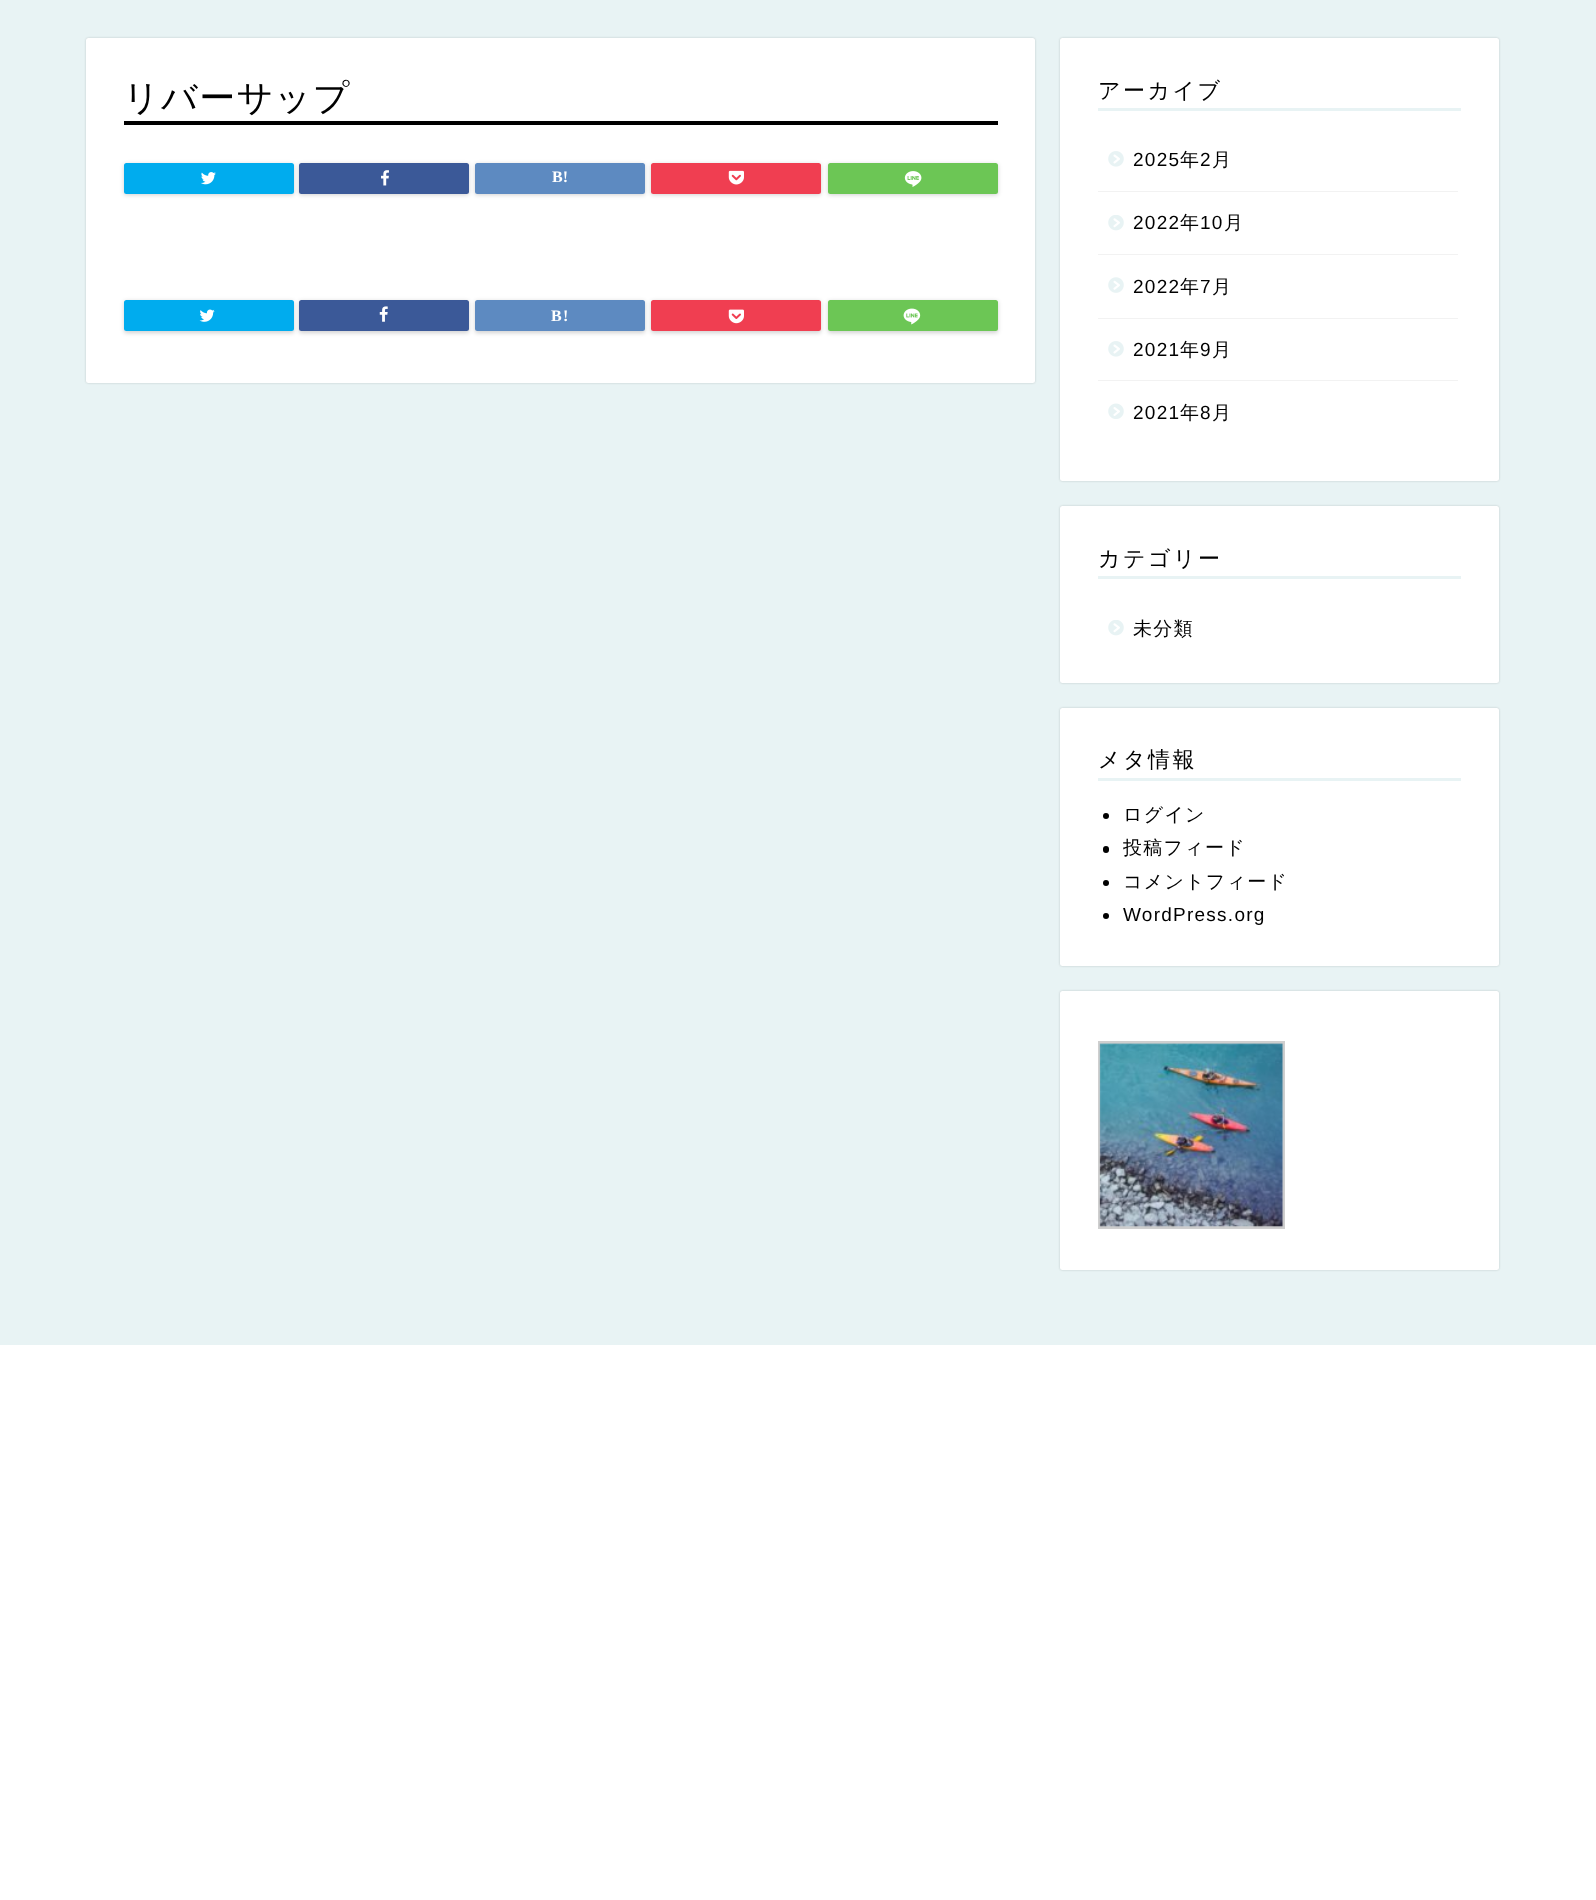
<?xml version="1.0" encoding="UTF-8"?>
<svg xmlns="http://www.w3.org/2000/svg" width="1596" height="1900">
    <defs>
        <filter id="blur1" x="-50%" y="-200%" width="200%" height="500%"><feGaussianBlur stdDeviation="1"/></filter>
        <filter id="blur2" x="-50%" y="-200%" width="200%" height="500%"><feGaussianBlur stdDeviation="2"/></filter>
    </defs>
    <rect width="100%" height="100%" fill="#FFFFFF"/>
    <rect x="0" y="0" width="1596" height="1345" fill="#E8F3F4"/>
    <rect x="86" y="38" width="949" height="345" rx="2.5" fill="#000000" fill-opacity="0.18" filter="url(#blur1)"/>
    <rect x="86" y="38" width="949" height="345" rx="2.5" fill="#FFFFFF"/>
    <rect x="124" y="121" width="874" height="4" fill="#000000"/>
    <text x="123" y="110" font-family="WenQuanYi Zen Hei" font-size="36" font-weight="500" letter-spacing="1.25" fill="#000000">リバーサップ</text>
    <rect x="124" y="164" width="170" height="31" rx="2.5" fill="#000000" fill-opacity="0.18" filter="url(#blur2)"/>
    <rect x="125.5" y="164.5" width="167" height="28" rx="1" fill="#00ACEE" stroke="#00ACEE" stroke-width="3"/>
    <image x="201" y="172" width="15" height="13" href="img_01.png"/>
    <rect x="299" y="164" width="170" height="31" rx="2.5" fill="#000000" fill-opacity="0.18" filter="url(#blur2)"/>
    <rect x="300.5" y="164.5" width="167" height="28" rx="1" fill="#3B5998" stroke="#3B5998" stroke-width="3"/>
    <image x="381" y="170" width="8" height="16" href="img_02.png"/>
    <rect x="475" y="164" width="170" height="31" rx="2.5" fill="#000000" fill-opacity="0.18" filter="url(#blur2)"/>
    <rect x="476.5" y="164.5" width="167" height="28" rx="1" fill="#5D8AC1" stroke="#5D8AC1" stroke-width="3"/>
    <text x="552" y="182" font-family="Liberation Serif" font-size="16" font-weight="700" fill="#FFFFFF">B!</text>
    <rect x="651" y="164" width="170" height="31" rx="2.5" fill="#000000" fill-opacity="0.18" filter="url(#blur2)"/>
    <rect x="652.5" y="164.5" width="167" height="28" rx="1" fill="#F03E51" stroke="#F03E51" stroke-width="3"/>
    <image x="728" y="170" width="16" height="15" href="img_03.png"/>
    <rect x="828" y="164" width="170" height="31" rx="2.5" fill="#000000" fill-opacity="0.18" filter="url(#blur2)"/>
    <rect x="829.5" y="164.5" width="167" height="28" rx="1" fill="#6CC655" stroke="#6CC655" stroke-width="3"/>
    <image x="904" y="171" width="18" height="16" href="img_04.png"/>
    <rect x="124" y="301" width="170" height="32" rx="2.5" fill="#000000" fill-opacity="0.18" filter="url(#blur2)"/>
    <rect x="125.5" y="301.5" width="167" height="28" rx="1" fill="#00ACEE" stroke="#00ACEE" stroke-width="3"/>
    <image x="199" y="309" width="16" height="13" href="img_05.png"/>
    <rect x="299" y="301" width="170" height="32" rx="2.5" fill="#000000" fill-opacity="0.18" filter="url(#blur2)"/>
    <rect x="300.5" y="301.5" width="167" height="28" rx="1" fill="#3B5998" stroke="#3B5998" stroke-width="3"/>
    <image x="379" y="306" width="9" height="16" href="img_06.png"/>
    <rect x="475" y="301" width="170" height="32" rx="2.5" fill="#000000" fill-opacity="0.18" filter="url(#blur2)"/>
    <rect x="476.5" y="301.5" width="167" height="28" rx="1" fill="#5D8AC1" stroke="#5D8AC1" stroke-width="3"/>
    <text x="551" y="321" font-family="Liberation Serif" font-size="16" font-weight="700" letter-spacing="1.25" fill="#FFFFFF">B!</text>
    <rect x="651" y="301" width="170" height="32" rx="2.5" fill="#000000" fill-opacity="0.18" filter="url(#blur2)"/>
    <rect x="652.5" y="301.5" width="167" height="28" rx="1" fill="#F03E51" stroke="#F03E51" stroke-width="3"/>
    <image x="728" y="309" width="16" height="15" href="img_07.png"/>
    <rect x="828" y="301" width="170" height="32" rx="2.5" fill="#000000" fill-opacity="0.18" filter="url(#blur2)"/>
    <rect x="829.5" y="301.5" width="167" height="28" rx="1" fill="#6CC655" stroke="#6CC655" stroke-width="3"/>
    <image x="903" y="308" width="18" height="17" href="img_08.png"/>
    <rect x="1060" y="38" width="439" height="443" rx="2.5" fill="#000000" fill-opacity="0.18" filter="url(#blur1)"/>
    <rect x="1060" y="38" width="439" height="443" rx="2.5" fill="#FFFFFF"/>
    <rect x="1098" y="108" width="363" height="3" fill="#E8F3F4"/>
    <text x="1098" y="98" font-family="WenQuanYi Zen Hei" font-size="22" font-weight="500" letter-spacing="2.5" fill="#000000">アーカイブ</text>
    <rect x="1098" y="191" width="360" height="1" fill="#F2F2F2"/>
    <image x="1108" y="151" width="16" height="16" href="img_09.png"/>
    <text x="1133" y="166" font-family="Liberation Sans" font-size="19" letter-spacing="1.25" fill="#000000">2025</text>
    <text x="1180" y="166" font-family="WenQuanYi Zen Hei" font-size="19" font-weight="500" letter-spacing="1.25" fill="#000000">年</text>
    <text x="1200" y="166" font-family="Liberation Sans" font-size="19" letter-spacing="1.25" fill="#000000">2</text>
    <text x="1212" y="166" font-family="WenQuanYi Zen Hei" font-size="19" font-weight="500" letter-spacing="1.25" fill="#000000">月</text>
    <rect x="1098" y="254" width="360" height="1" fill="#F2F2F2"/>
    <image x="1108" y="215" width="16" height="16" href="img_10.png"/>
    <text x="1133" y="229" font-family="Liberation Sans" font-size="19" letter-spacing="1.25" fill="#000000">2022</text>
    <text x="1180" y="229" font-family="WenQuanYi Zen Hei" font-size="19" font-weight="500" letter-spacing="1.25" fill="#000000">年</text>
    <text x="1200" y="229" font-family="Liberation Sans" font-size="19" letter-spacing="1.25" fill="#000000">10</text>
    <text x="1224" y="229" font-family="WenQuanYi Zen Hei" font-size="19" font-weight="500" letter-spacing="1.25" fill="#000000">月</text>
    <rect x="1098" y="318" width="360" height="1" fill="#F2F2F2"/>
    <image x="1108" y="277" width="16" height="16" href="img_11.png"/>
    <text x="1133" y="293" font-family="Liberation Sans" font-size="19" letter-spacing="1.25" fill="#000000">2022</text>
    <text x="1180" y="293" font-family="WenQuanYi Zen Hei" font-size="19" font-weight="500" letter-spacing="1.25" fill="#000000">年</text>
    <text x="1200" y="293" font-family="Liberation Sans" font-size="19" letter-spacing="1.25" fill="#000000">7</text>
    <text x="1212" y="293" font-family="WenQuanYi Zen Hei" font-size="19" font-weight="500" letter-spacing="1.25" fill="#000000">月</text>
    <rect x="1098" y="380" width="360" height="1" fill="#F2F2F2"/>
    <image x="1108" y="341" width="16" height="16" href="img_09.png"/>
    <text x="1133" y="356" font-family="Liberation Sans" font-size="19" letter-spacing="1.25" fill="#000000">2021</text>
    <text x="1180" y="356" font-family="WenQuanYi Zen Hei" font-size="19" font-weight="500" letter-spacing="1.25" fill="#000000">年</text>
    <text x="1200" y="356" font-family="Liberation Sans" font-size="19" letter-spacing="1.25" fill="#000000">9</text>
    <text x="1212" y="356" font-family="WenQuanYi Zen Hei" font-size="19" font-weight="500" letter-spacing="1.25" fill="#000000">月</text>
    <image x="1108" y="403" width="16" height="16" href="img_12.png"/>
    <text x="1133" y="419" font-family="Liberation Sans" font-size="19" letter-spacing="1.25" fill="#000000">2021</text>
    <text x="1180" y="419" font-family="WenQuanYi Zen Hei" font-size="19" font-weight="500" letter-spacing="1.25" fill="#000000">年</text>
    <text x="1200" y="419" font-family="Liberation Sans" font-size="19" letter-spacing="1.25" fill="#000000">8</text>
    <text x="1212" y="419" font-family="WenQuanYi Zen Hei" font-size="19" font-weight="500" letter-spacing="1.25" fill="#000000">月</text>
    <rect x="1060" y="506" width="439" height="177" rx="2.5" fill="#000000" fill-opacity="0.18" filter="url(#blur1)"/>
    <rect x="1060" y="506" width="439" height="177" rx="2.5" fill="#FFFFFF"/>
    <rect x="1098" y="576" width="363" height="3" fill="#E8F3F4"/>
    <text x="1098" y="566" font-family="WenQuanYi Zen Hei" font-size="22" font-weight="500" letter-spacing="2.5" fill="#000000">カテゴリー</text>
    <image x="1108" y="620" width="16" height="16" href="img_10.png"/>
    <text x="1133" y="635" font-family="WenQuanYi Zen Hei" font-size="19" font-weight="500" letter-spacing="1.25" fill="#000000">未分類</text>
    <rect x="1060" y="708" width="439" height="258" rx="2.5" fill="#000000" fill-opacity="0.18" filter="url(#blur1)"/>
    <rect x="1060" y="708" width="439" height="258" rx="2.5" fill="#FFFFFF"/>
    <rect x="1098" y="778" width="363" height="3" fill="#E8F3F4"/>
    <text x="1098" y="767" font-family="WenQuanYi Zen Hei" font-size="22" font-weight="500" letter-spacing="2.5" fill="#000000">メタ情報</text>
    <circle cx="1106" cy="816" r="3" fill="#000000"/>
    <text x="1123" y="821" font-family="WenQuanYi Zen Hei" font-size="19" font-weight="500" letter-spacing="1.25" fill="#000000">ログイン</text>
    <rect x="1103" y="846" width="6" height="7" rx="3" fill="#000000"/>
    <text x="1123" y="854" font-family="WenQuanYi Zen Hei" font-size="19" font-weight="500" letter-spacing="1.25" fill="#000000">投稿フィード</text>
    <circle cx="1106" cy="883" r="3" fill="#000000"/>
    <text x="1123" y="888" font-family="WenQuanYi Zen Hei" font-size="19" font-weight="500" letter-spacing="1.25" fill="#000000">コメントフィード</text>
    <circle cx="1106" cy="916" r="3" fill="#000000"/>
    <text x="1123" y="921" font-family="Liberation Sans" font-size="19" letter-spacing="1.25" fill="#000000">WordPress.org</text>
    <rect x="1060" y="991" width="439" height="279" rx="2.5" fill="#000000" fill-opacity="0.18" filter="url(#blur1)"/>
    <rect x="1060" y="991" width="439" height="279" rx="2.5" fill="#FFFFFF"/>
    <rect x="1099.5" y="1042.5" width="184" height="185" fill="none" stroke="#CFCFCF" stroke-width="3"/>
    <image x="1099" y="1043" width="185" height="185" href="img_13.png"/>
</svg>
